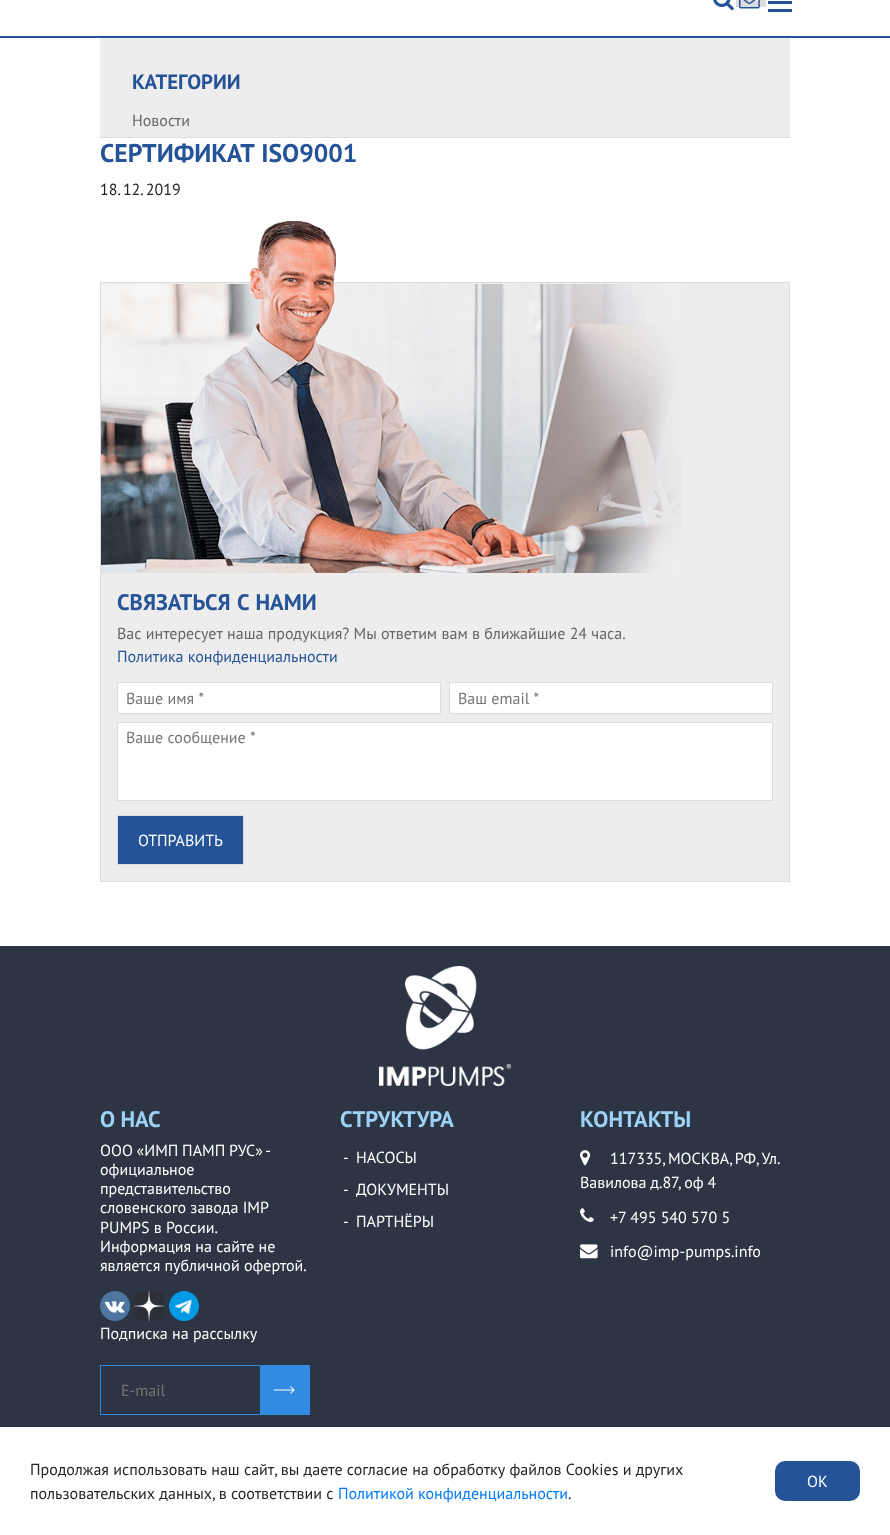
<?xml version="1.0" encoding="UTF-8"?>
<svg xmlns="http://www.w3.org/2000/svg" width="890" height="1535">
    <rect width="100%" height="100%" fill="#FFFFFF"/>
    <rect x="0" y="36" width="890" height="2" fill="#255398"/>
    <image x="713" y="0" width="21" height="11" href="img_01.png"/>
    <rect x="736" y="0" width="30" height="7" fill="#DCDCDC"/>
    <image x="756" y="0" width="3" height="2" href="img_03.png"/>
    <image x="739" y="0" width="21" height="9" href="img_02.png"/>
    <rect x="768" y="1" width="24" height="3" fill="#255398"/>
    <rect x="768" y="9" width="24" height="3" fill="#255398"/>
    <rect x="100" y="38" width="690" height="99" fill="#EDEDED"/>
    <rect x="100" y="137" width="690" height="1" fill="#DCDCDC"/>
    <text x="132" y="89" font-family="PT Sans" font-size="20.75" font-weight="700" fill="#255398">КАТЕГОРИИ</text>
    <text x="132" y="126" font-family="PT Sans" font-size="16" fill="#666666">Новости</text>
    <text x="100" y="162" word-spacing="1" font-family="PT Sans" font-size="25.6" font-weight="700" fill="#255398">СЕРТИФИКАТ ISO9001</text>
    <text x="100" y="195" word-spacing="-1" font-family="PT Sans" font-size="16" fill="#212529">18. 12. 2019</text>
    <rect x="100.5" y="282.5" width="689" height="599" fill="#EDEDED" stroke="#DCDCDC"/>
    <image x="101" y="221" width="581" height="352" href="img_04.png"/>
    <text x="117" y="610" word-spacing="1" font-family="PT Sans" font-size="22.5" font-weight="700" fill="#255398">СВЯЗАТЬСЯ С НАМИ</text>
    <text x="117" y="639" font-family="PT Sans" font-size="16" fill="#666666">Вас интересует наша продукция? Мы ответим вам в ближайшие 24 часа.</text>
    <text x="117" y="662" font-family="PT Sans" font-size="16" fill="#255398">Политика конфиденциальности</text>
    <rect x="117.5" y="682.5" width="323" height="31" fill="#FFFFFF" stroke="#DCDCDC"/>
    <text x="126" y="704" font-family="PT Sans" font-size="16" fill="#757575">Ваше имя *</text>
    <rect x="449.5" y="682.5" width="323" height="31" fill="#FFFFFF" stroke="#DCDCDC"/>
    <text x="458" y="704" font-family="PT Sans" font-size="16" fill="#757575">Ваш email *</text>
    <rect x="117.5" y="722.5" width="655" height="78" fill="#FFFFFF" stroke="#DCDCDC"/>
    <text x="126" y="743" font-family="PT Sans" font-size="16" fill="#757575">Ваше сообщение *</text>
    <rect x="117.5" y="815.5" width="126" height="49" fill="#255398" stroke="#DCDCDC"/>
    <text x="138" y="846" font-family="PT Sans" font-size="16" fill="#FFFFFF">ОТПРАВИТЬ</text>
    <rect x="0" y="946" width="890" height="481" fill="#2D3544"/>
    <image x="379" y="966" width="132" height="120" href="img_05.png"/>
    <text x="100" y="1127" font-family="PT Sans" font-size="22.5" font-weight="700" fill="#9BD2F5">О НАС</text>
    <text font-family="PT Sans" font-size="16" fill="#FFFFFF">
        <tspan x="100" y="1156" word-spacing="-0.5">ООО «ИМП ПАМП РУС» -</tspan>
        <tspan x="100" y="1175">официальное</tspan>
        <tspan x="100" y="1194">представительство</tspan>
        <tspan x="100" y="1213">словенского завода IMP</tspan>
        <tspan x="100" y="1233">PUMPS в России.</tspan>
        <tspan x="100" y="1252">Информация на сайте не</tspan>
        <tspan x="100" y="1271">является публичной офертой.</tspan>
    </text>
    <image x="100" y="1291" width="30" height="30" href="img_06.png"/>
    <image x="134" y="1291" width="30" height="30" href="img_07.png"/>
    <image x="169" y="1291" width="30" height="30" href="img_08.png"/>
    <text x="340" y="1127" font-family="PT Sans" font-size="22.5" font-weight="700" fill="#9BD2F5">СТРУКТУРА</text>
    <text x="343" y="1163" font-family="PT Sans" font-size="16" fill="#FFFFFF">-</text>
    <text x="356" y="1163" font-family="PT Sans" font-size="16" fill="#FFFFFF">НАСОСЫ</text>
    <text x="343" y="1195" font-family="PT Sans" font-size="16" fill="#FFFFFF">-</text>
    <text x="356" y="1195" font-family="PT Sans" font-size="16" fill="#FFFFFF">ДОКУМЕНТЫ</text>
    <text x="343" y="1227" font-family="PT Sans" font-size="16" fill="#FFFFFF">-</text>
    <text x="356" y="1227" font-family="PT Sans" font-size="16" fill="#FFFFFF">ПАРТНЁРЫ</text>
    <text x="580" y="1127" font-family="PT Sans" font-size="22.5" font-weight="700" fill="#9BD2F5">КОНТАКТЫ</text>
    <image x="580" y="1150" width="11" height="16" href="img_09.png"/>
    <text x="610" y="1164" word-spacing="-1" font-family="PT Sans" font-size="16" fill="#FFFFFF">117335, МОСКВА, РФ, Ул.</text>
    <text x="580" y="1188" word-spacing="-0.5" font-family="PT Sans" font-size="16" fill="#FFFFFF">Вавилова д.87, оф 4</text>
    <image x="580" y="1208" width="14" height="14" href="img_10.png"/>
    <text x="610" y="1223" font-family="PT Sans" font-size="16" fill="#FFFFFF">+7 495 540 570 5</text>
    <image x="580" y="1244" width="18" height="15" href="img_11.png"/>
    <text x="610" y="1257" font-family="PT Sans" font-size="16" fill="#FFFFFF">info@imp-pumps.info</text>
    <text x="100" y="1339" font-family="PT Sans" font-size="16" fill="#FFFFFF">Подписка на рассылку</text>
    <rect x="100.5" y="1365.5" width="209" height="49" fill="none" stroke="#318BE2"/>
    <text x="121" y="1396" font-family="PT Sans" font-size="16" fill="#757575">E-mail</text>
    <rect x="260" y="1366" width="49" height="48" fill="#318BE2"/>
    <image x="273" y="1386" width="22" height="8" href="img_12.png"/>
    <text font-family="PT Sans" font-size="16" fill="#212529">
        <tspan x="30" y="1475">Продолжая использовать наш сайт, вы даете согласие на обработку файлов Cookies и других</tspan>
        <tspan x="30" y="1499">пользовательских данных, в соответствии с</tspan>
    </text>
    <text x="338" y="1499" font-family="PT Sans" font-size="16" fill="#007BFF">Политикой конфиденциальности</text>
    <text x="568" y="1499" font-family="PT Sans" font-size="16" fill="#212529">.</text>
    <rect x="775" y="1461" width="85" height="40" rx="10" fill="#255398"/>
    <text x="807" y="1487" font-family="PT Sans" font-size="16" fill="#FFFFFF">OK</text>
</svg>
